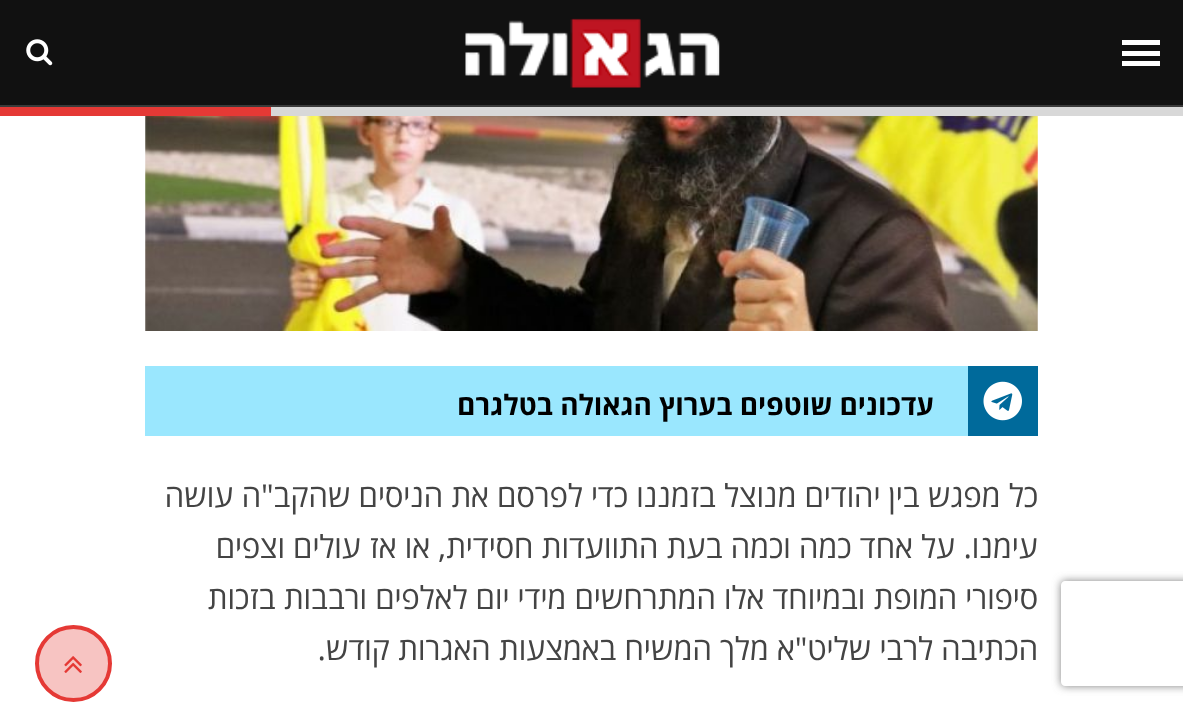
<?xml version="1.0" encoding="UTF-8"?>
<svg xmlns="http://www.w3.org/2000/svg" width="1183" height="709">
    <defs>
        <clipPath id="clip1"><path d="M 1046 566 H 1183 V 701 H 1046 Z M 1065 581 H 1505 C 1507 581 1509 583 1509 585 V 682 C 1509 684 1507 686 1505 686 H 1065 C 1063 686 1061 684 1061 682 V 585 C 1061 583 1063 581 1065 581 Z" clip-rule="evenodd"/></clipPath>
        <filter id="blur1" x="-50%" y="-200%" width="200%" height="500%"><feGaussianBlur stdDeviation="4.5"/></filter>
    </defs>
    <rect width="100%" height="100%" fill="#FFFFFF"/>
    <rect x="0" y="105" width="1183" height="2" fill="#3A3A3A"/>
    <rect x="0" y="0" width="1183" height="105" fill="#111111"/>
    <image x="465" y="18" width="255" height="70" href="img_01.png"/>
    <rect x="1122" y="40" width="38" height="5" fill="#FFFFFF"/>
    <rect x="1122" y="51" width="38" height="5" fill="#FFFFFF"/>
    <rect x="1122" y="61" width="38" height="5" fill="#FFFFFF"/>
    <rect x="271" y="107" width="912" height="9" fill="#D8D8D8"/>
    <rect x="0" y="107" width="271" height="9" fill="#E53935"/>
    <g clip-path="url(#clip1)">
        <rect x="1061" y="581" width="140" height="105" rx="4" fill="#808080" filter="url(#blur1)"/>
    </g>
    <image x="26" y="39" width="27" height="27" href="img_02.png"/>
    <image x="145" y="116" width="893" height="215" href="img_03.png"/>
    <rect x="145" y="366" width="823" height="70" fill="#9AE7FE"/>
    <rect x="968" y="366" width="70" height="70" fill="#006A9B"/>
    <image x="983" y="381" width="39" height="40" href="img_04.png"/>
    <text x="934" y="415" font-family="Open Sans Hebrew" font-size="28" font-weight="700" direction="rtl" fill="#000000">עדכונים שוטפים בערוץ הגאולה בטלגרם</text>
    <text font-family="Open Sans Hebrew" font-size="31.5" direction="rtl" fill="#444444">
        <tspan x="1038" y="507">כל מפגש בין יהודים מנוצל בזמננו כדי לפרסם את הניסים שהקב"ה עושה</tspan>
        <tspan x="1038" y="558">עימנו. על אחד כמה וכמה בעת התוועדות חסידית, או אז עולים וצפים</tspan>
        <tspan x="1038" y="609">סיפורי המופת ובמיוחד אלו המתרחשים מידי יום לאלפים ורבבות בזכות</tspan>
        <tspan x="1038" y="660">הכתיבה לרבי שליט"א מלך המשיח באמצעות האגרות קודש.</tspan>
    </text>
    <circle cx="73.5" cy="663.5" r="36.5" fill="#F7C4C2" stroke="#E53935" stroke-width="4"/>
    <image x="64" y="656" width="18" height="17" href="img_05.png"/>
</svg>
